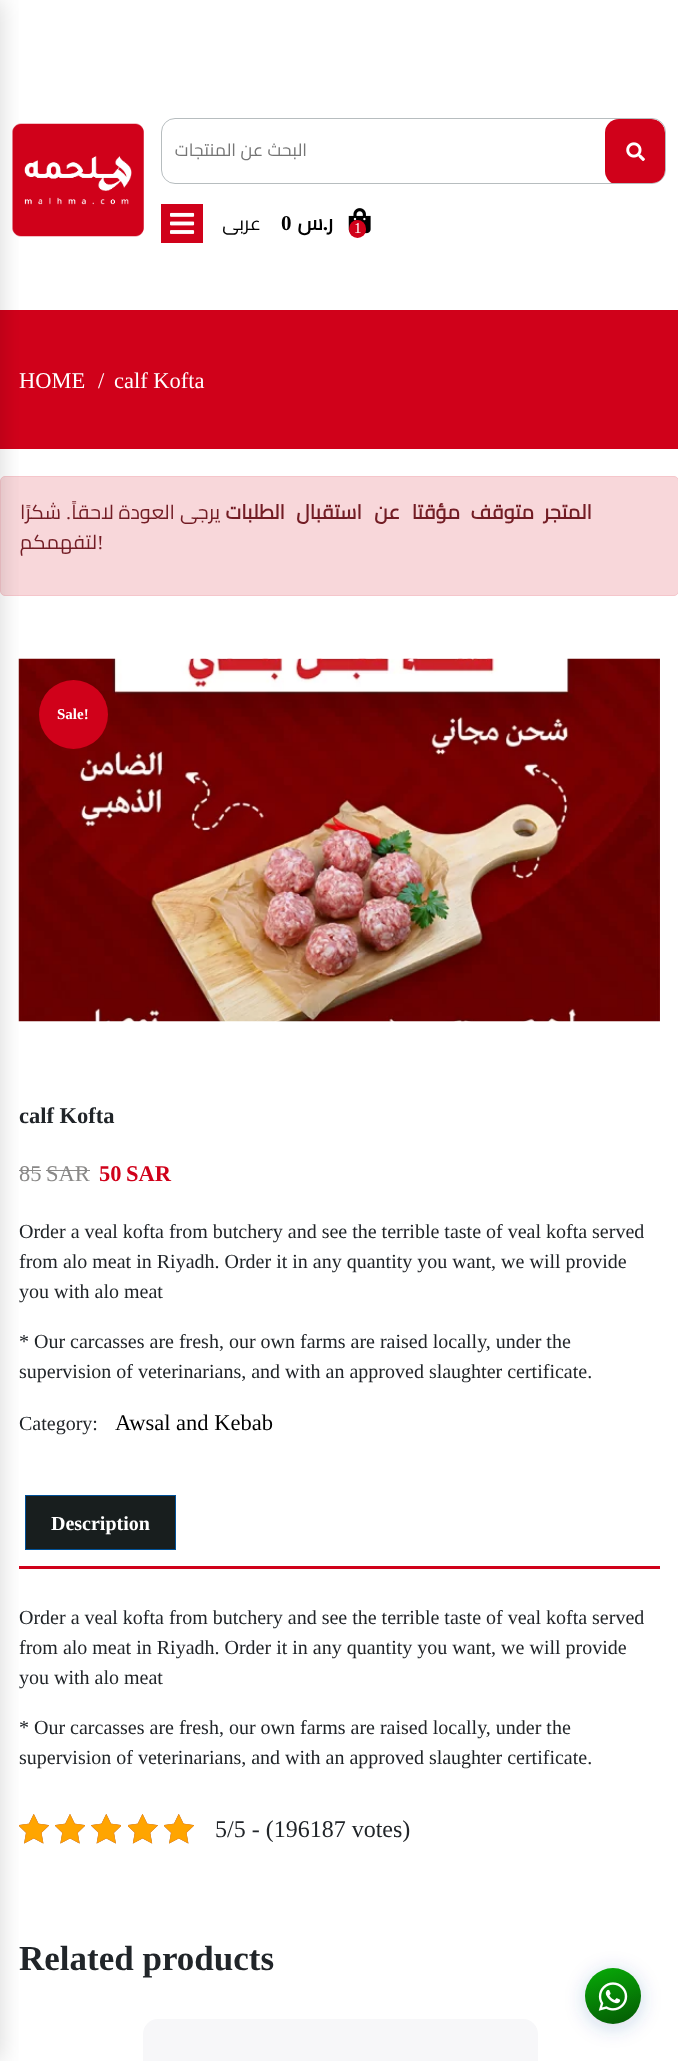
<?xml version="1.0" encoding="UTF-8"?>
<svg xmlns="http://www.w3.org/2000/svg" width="678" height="2061">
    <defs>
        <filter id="blur1" x="-50%" y="-200%" width="200%" height="500%"><feGaussianBlur stdDeviation="12.5"/></filter>
        <clipPath id="clip1"><rect x="163" y="119" width="502" height="64" rx="13"/></clipPath>
        <filter id="blur2" x="-50%" y="-200%" width="200%" height="500%"><feGaussianBlur stdDeviation="10"/></filter>
        <linearGradient id="g1" gradientUnits="userSpaceOnUse" x1="604" y1="1962" x2="623" y2="2029"><stop offset="0" stop-color="#08AD08"/><stop offset="1" stop-color="#045704"/></linearGradient>
    </defs>
    <rect width="100%" height="100%" fill="#FFFFFF"/>
    <image x="12" y="123" width="132" height="114" href="img_01.png"/>
    <rect x="0" y="310" width="678" height="139" fill="#D0011A"/>
    <rect x="0.5" y="476.5" width="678" height="119" rx="4.5" fill="#F8D7DA" stroke="#F5C6CB"/>
    <image x="18" y="658" width="642" height="364" href="img_05.png"/>
    <rect x="19" y="1170" width="22" height="1" fill="#8A8988"/>
    <rect x="25.5" y="1495.5" width="150" height="54" fill="#181E1E" stroke="#005198"/>
    <rect x="19" y="1566" width="641" height="3" fill="#D0011A"/>
    <image x="19" y="1814" width="30" height="30" href="img_06.png"/>
    <image x="19" y="1814" width="30" height="30" href="img_10.png"/>
    <rect x="-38" y="0" width="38" height="2061" fill="#000000" fill-opacity="0.16" filter="url(#blur1)"/>
    <rect x="161.5" y="118.5" width="504" height="65" rx="13.5" fill="none" stroke="#B7BDBF"/>
    <text x="236" y="156" font-family="Cairo" font-size="17.5" direction="rtl" fill="#757575">المنتجات</text>
    <text x="263" y="156" font-family="Cairo" font-size="17.5" direction="rtl" fill="#757575">عن</text>
    <text x="307" y="156" font-family="Cairo" font-size="17.5" direction="rtl" fill="#757575">البحث</text>
    <g clip-path="url(#clip1)">
        <rect x="605" y="119" width="60" height="66" rx="14" fill="#D0011A"/>
    </g>
    <image x="626" y="142" width="19" height="19" href="img_02.png"/>
    <rect x="161" y="204" width="42" height="39" fill="#D0011A"/>
    <image x="170" y="212" width="25" height="22" href="img_03.png"/>
    <text x="261" y="230" font-family="Cairo" font-size="19" direction="rtl" fill="#000000">عربى</text>
    <text x="281" y="230" font-family="Liberation Serif" font-size="21" font-weight="700" fill="#000000">0</text>
    <text x="323" y="230" font-family="Cairo" font-size="21" font-weight="700" direction="rtl" fill="#000000">س</text>
    <text x="328" y="230" font-family="Liberation Serif" font-size="21" font-weight="700" direction="rtl" fill="#000000">.</text>
    <text x="333" y="230" font-family="Cairo" font-size="21" font-weight="700" direction="rtl" fill="#000000">ر</text>
    <image x="348" y="208" width="23" height="26" href="img_04.png"/>
    <rect x="349" y="220" width="17" height="18" rx="8.5" fill="#D0011A"/>
    <text x="354" y="233" font-family="Liberation Serif" font-size="15" fill="#FFFFFF">1</text>
    <text x="19" y="388" font-family="Liberation Serif" font-size="22.5" fill="#FFFFFF">HOME</text>
    <text x="98" y="388" font-family="Liberation Serif" font-size="22.5" fill="#FFFFFF">/</text>
    <text x="114" y="388" font-family="Liberation Serif" font-size="22.5" fill="#FFFFFF">calf Kofta</text>
    <text x="61" y="519" font-family="Cairo" font-size="20" direction="rtl" fill="#721C24">شكرًا</text>
    <text x="71" y="519" font-family="Liberation Serif" font-size="20" direction="rtl" fill="#721C24">.</text>
    <text x="114" y="519" font-family="Cairo" font-size="20" direction="rtl" fill="#721C24">لاحقاً</text>
    <text x="175" y="519" font-family="Cairo" font-size="20" direction="rtl" fill="#721C24">العودة</text>
    <text x="220" y="519" font-family="Cairo" font-size="20" direction="rtl" fill="#721C24">يرجى</text>
    <text x="285" y="519" font-family="Cairo" font-size="20" font-weight="700" direction="rtl" fill="#721C24">الطلبات</text>
    <text x="362" y="519" font-family="Cairo" font-size="20" font-weight="700" direction="rtl" fill="#721C24">استقبال</text>
    <text x="400" y="519" font-family="Cairo" font-size="20" font-weight="700" direction="rtl" fill="#721C24">عن</text>
    <text x="460" y="519" font-family="Cairo" font-size="20" font-weight="700" direction="rtl" fill="#721C24">مؤقتا</text>
    <text x="534" y="519" font-family="Cairo" font-size="20" font-weight="700" direction="rtl" fill="#721C24">متوقف</text>
    <text x="592" y="519" font-family="Cairo" font-size="20" font-weight="700" direction="rtl" fill="#721C24">المتجر</text>
    <text x="97" y="549" font-family="Cairo" font-size="20" direction="rtl" fill="#721C24">لتفهمكم</text>
    <text x="97" y="549" font-family="Liberation Serif" font-size="20" fill="#721C24">!</text>
    <circle cx="73.5" cy="714.5" r="34.5" fill="#D0011A"/>
    <text x="57" y="719" font-family="Liberation Serif" font-size="15" font-weight="700" fill="#FFFFFF">Sale!</text>
    <text x="19" y="1123" font-family="Liberation Serif" font-size="22.5" font-weight="700" fill="#212529">calf Kofta</text>
    <text x="19" y="1181" font-family="Liberation Serif" font-size="22.5" fill="#8A8988">85</text>
    <text x="46" y="1181" font-family="Liberation Serif" font-size="22.5" fill="#8A8988">SAR</text>
    <rect x="46" y="1170" width="44" height="1" fill="#8A8988"/>
    <text x="99" y="1181" font-family="Liberation Serif" font-size="22.5" font-weight="700" fill="#D0011A">50</text>
    <text x="126" y="1181" font-family="Liberation Serif" font-size="22.5" font-weight="700" fill="#D0011A">SAR</text>
    <text font-family="Liberation Serif" font-size="20" fill="#212529">
        <tspan x="19" y="1238">Order a veal kofta from butchery and see the terrible taste of veal kofta served</tspan>
        <tspan x="19" y="1268">from alo meat in Riyadh. Order it in any quantity you want, we will provide</tspan>
        <tspan x="19" y="1298">you with alo meat</tspan>
    </text>
    <text font-family="Liberation Serif" font-size="20" fill="#212529">
        <tspan x="19" y="1348">* Our carcasses are fresh, our own farms are raised locally, under the</tspan>
        <tspan x="19" y="1378">supervision of veterinarians, and with an approved slaughter certificate.</tspan>
    </text>
    <text x="19" y="1430" font-family="Liberation Serif" font-size="20" fill="#212529">Category:</text>
    <text x="115" y="1430" font-family="Liberation Serif" font-size="22.5" fill="#000000">Awsal and Kebab</text>
    <text x="51" y="1530" font-family="Liberation Serif" font-size="20" font-weight="700" fill="#FFFFFF">Description</text>
    <text font-family="Liberation Serif" font-size="20" fill="#212529">
        <tspan x="19" y="1624">Order a veal kofta from butchery and see the terrible taste of veal kofta served</tspan>
        <tspan x="19" y="1654">from alo meat in Riyadh. Order it in any quantity you want, we will provide</tspan>
        <tspan x="19" y="1684">you with alo meat</tspan>
    </text>
    <text font-family="Liberation Serif" font-size="20" fill="#212529">
        <tspan x="19" y="1734">* Our carcasses are fresh, our own farms are raised locally, under the</tspan>
        <tspan x="19" y="1764">supervision of veterinarians, and with an approved slaughter certificate.</tspan>
    </text>
    <image x="55" y="1814" width="30" height="30" href="img_07.png"/>
    <image x="91" y="1814" width="30" height="30" href="img_08.png"/>
    <image x="128" y="1814" width="30" height="30" href="img_09.png"/>
    <image x="164" y="1814" width="30" height="30" href="img_06.png"/>
    <image x="55" y="1814" width="30" height="30" href="img_11.png"/>
    <image x="91" y="1814" width="30" height="30" href="img_12.png"/>
    <image x="128" y="1814" width="30" height="30" href="img_13.png"/>
    <image x="164" y="1814" width="30" height="30" href="img_10.png"/>
    <text x="215" y="1837" font-family="Liberation Serif" font-size="24" fill="#212529">5/5 - (196187 votes)</text>
    <text x="19" y="1970" font-family="Liberation Serif" font-size="35" font-weight="700" fill="#212529">Related products</text>
    <rect x="143" y="2019" width="395" height="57" rx="15" fill="#F7F7F9"/>
    <rect x="585" y="1971" width="56" height="57" rx="28" fill="#234A9D" fill-opacity="0.22" filter="url(#blur2)"/>
    <circle cx="613" cy="1996" r="28" fill="url(#g1)"/>
    <image x="598" y="1982" width="30" height="29" href="img_14.png"/>
</svg>
